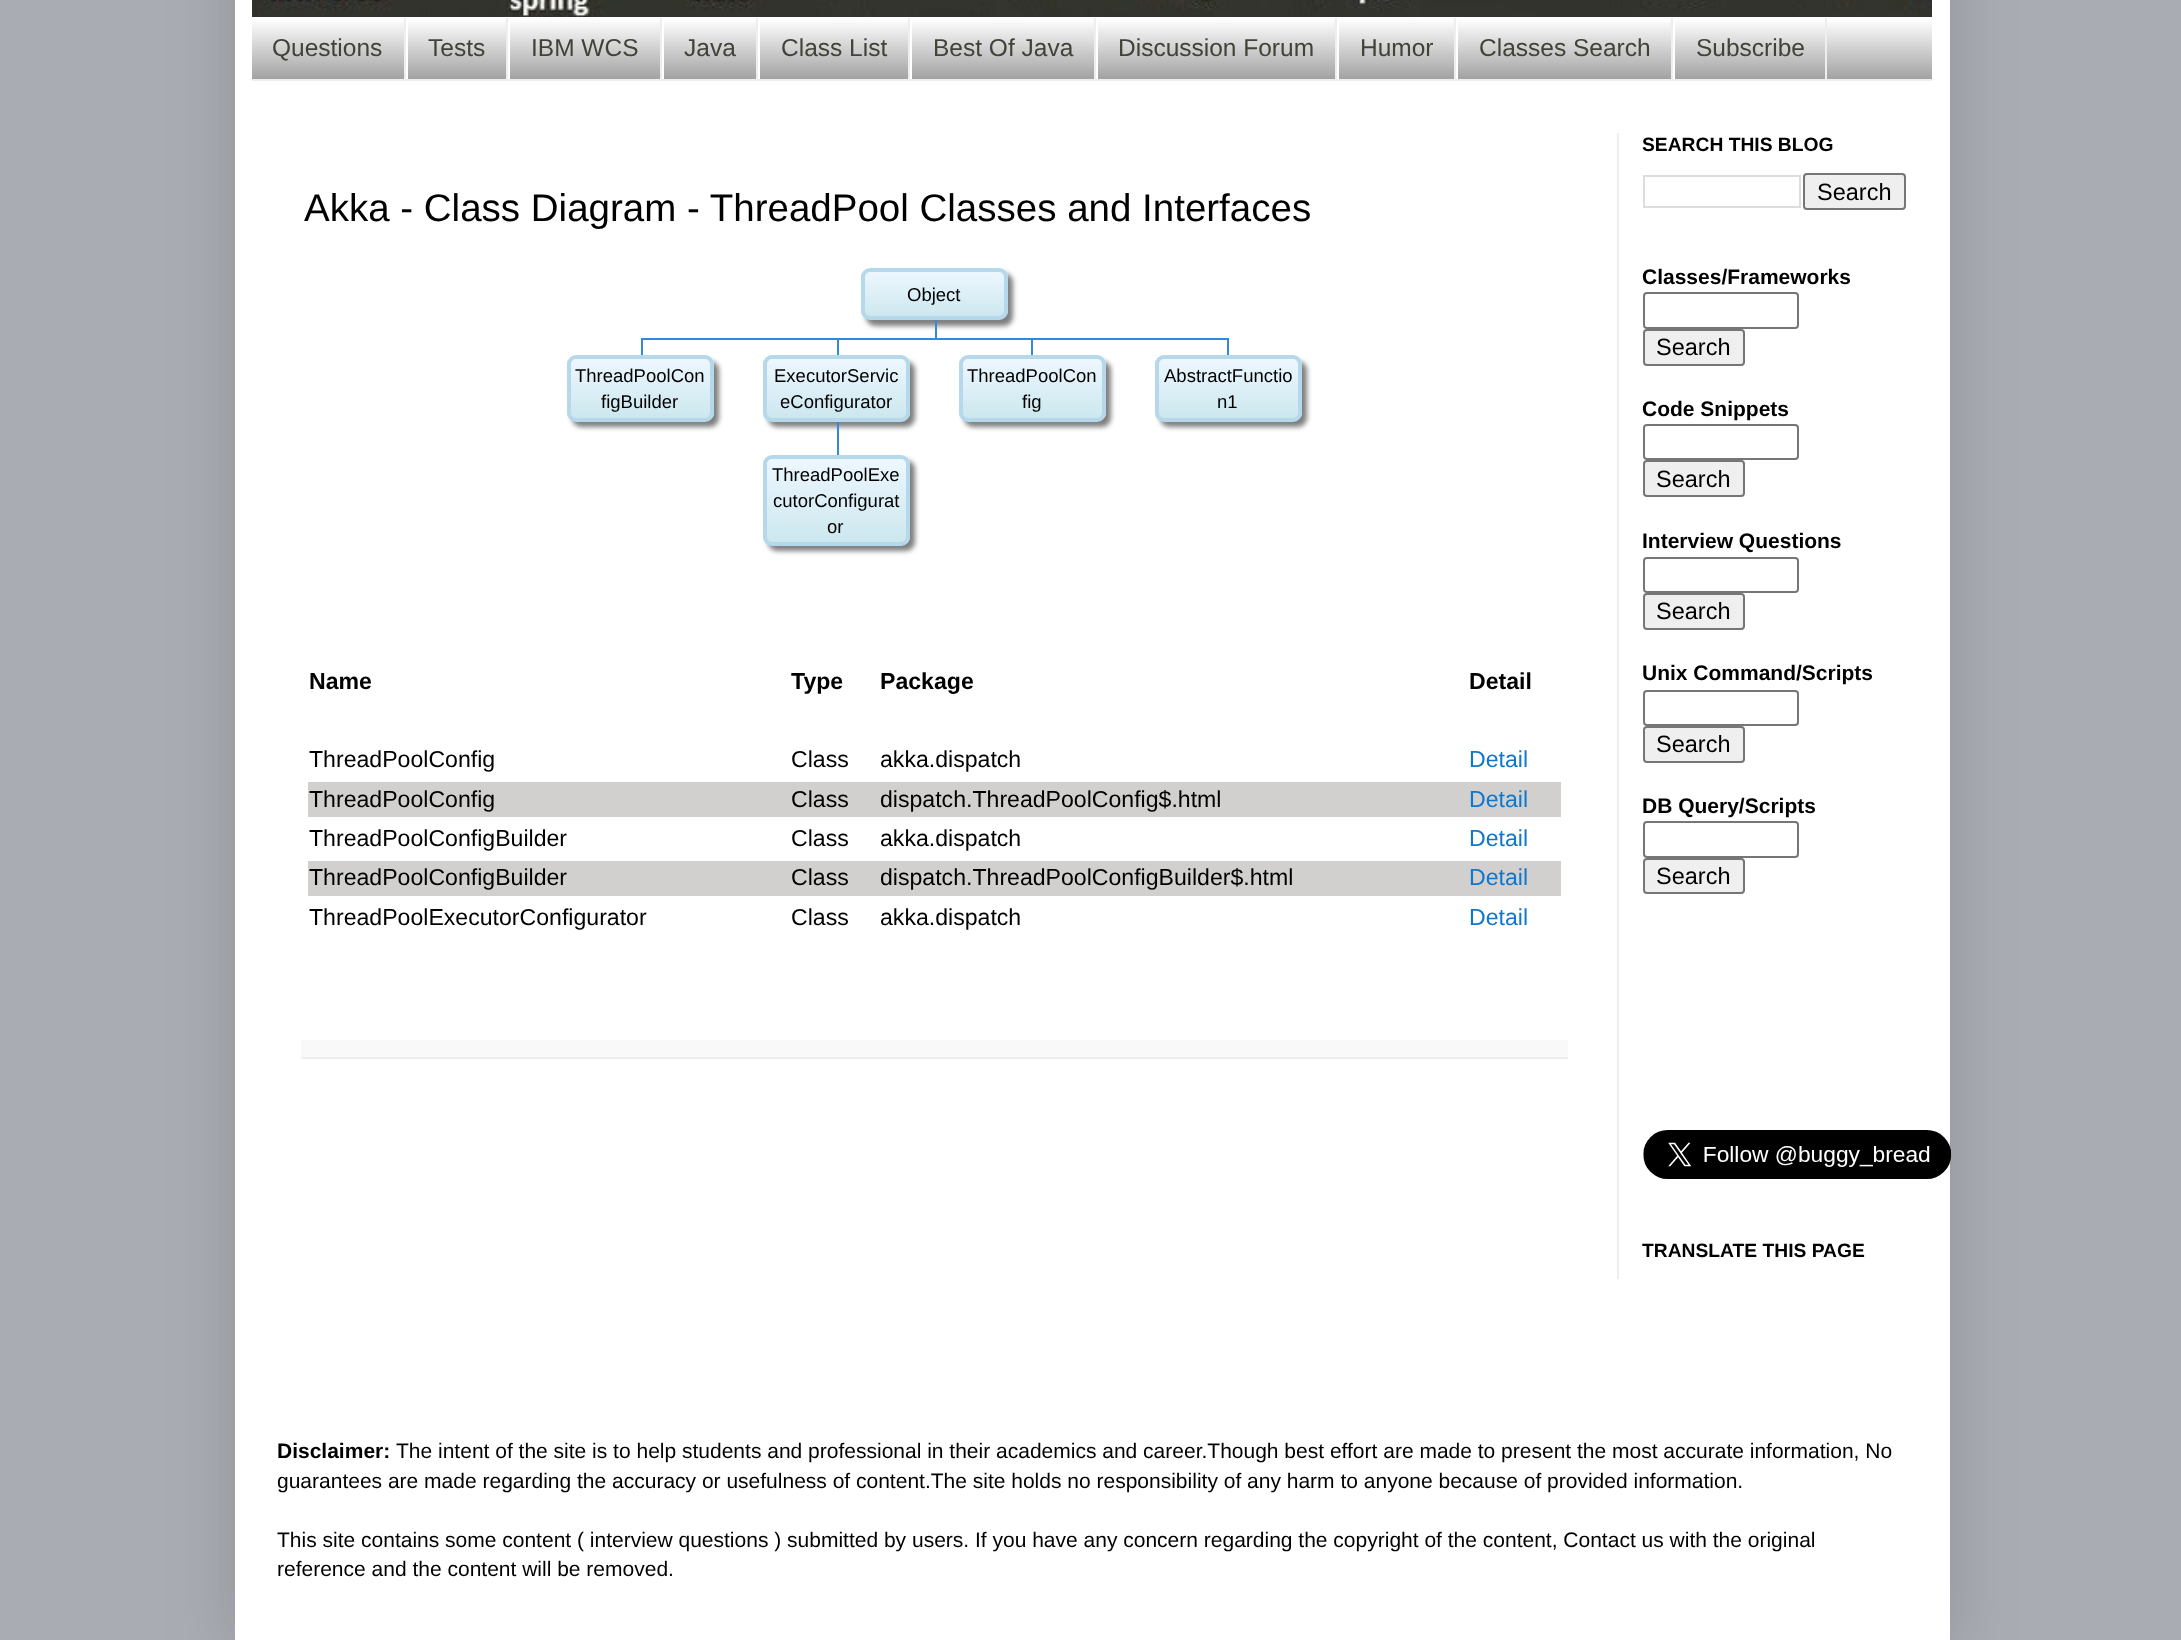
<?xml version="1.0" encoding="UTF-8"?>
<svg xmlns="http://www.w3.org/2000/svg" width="2181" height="1640">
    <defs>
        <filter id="blur1" x="-50%" y="-200%" width="200%" height="500%"><feGaussianBlur stdDeviation="35"/></filter>
        <filter id="blur2" x="-50%" y="-200%" width="200%" height="500%"><feGaussianBlur stdDeviation="2.5"/></filter>
        <clipPath id="clip1"><rect x="861" y="268" width="147" height="52" rx="9"/></clipPath>
        <linearGradient id="g1" gradientUnits="userSpaceOnUse" x1="865" y1="271" x2="865" y2="317"><stop offset="0" stop-color="#EDF7FF"/><stop offset="1" stop-color="#CDE7EE"/></linearGradient>
        <clipPath id="clip2"><rect x="567" y="355" width="147" height="67" rx="9"/></clipPath>
        <linearGradient id="g2" gradientUnits="userSpaceOnUse" x1="571" y1="359" x2="571" y2="418"><stop offset="0" stop-color="#EDF7FF"/><stop offset="1" stop-color="#CDE7EE"/></linearGradient>
        <clipPath id="clip3"><rect x="763" y="355" width="147" height="67" rx="9"/></clipPath>
        <linearGradient id="g3" gradientUnits="userSpaceOnUse" x1="767" y1="359" x2="767" y2="418"><stop offset="0" stop-color="#EDF7FF"/><stop offset="1" stop-color="#CDE7EE"/></linearGradient>
        <clipPath id="clip4"><rect x="959" y="355" width="147" height="67" rx="9"/></clipPath>
        <linearGradient id="g4" gradientUnits="userSpaceOnUse" x1="963" y1="359" x2="963" y2="418"><stop offset="0" stop-color="#EDF7FF"/><stop offset="1" stop-color="#CDE7EE"/></linearGradient>
        <clipPath id="clip5"><rect x="1155" y="355" width="147" height="67" rx="9"/></clipPath>
        <linearGradient id="g5" gradientUnits="userSpaceOnUse" x1="1159" y1="359" x2="1159" y2="418"><stop offset="0" stop-color="#EDF7FF"/><stop offset="1" stop-color="#CDE7EE"/></linearGradient>
        <clipPath id="clip6"><rect x="763" y="455" width="147" height="91" rx="9"/></clipPath>
        <linearGradient id="g6" gradientUnits="userSpaceOnUse" x1="767" y1="459" x2="767" y2="543"><stop offset="0" stop-color="#EDF7FF"/><stop offset="1" stop-color="#CDE7EE"/></linearGradient>
    </defs>
    <rect width="100%" height="100%" fill="#A9ACB2"/>
    <rect x="235" y="-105" width="1715" height="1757" fill="#000000" fill-opacity="0.15" filter="url(#blur1)"/>
    <rect x="235" y="0" width="1715" height="1640" fill="#FFFFFF"/>
    <image x="252" y="0" width="1680" height="17" href="img_01.png"/>
    <rect x="252" y="19" width="1680" height="60" fill="#999999"/>
    <image x="252" y="17" width="1680" height="62" href="img_02.png"/>
    <rect x="252" y="79" width="1680" height="2" fill="#EEEEEE"/>
    <rect x="404" y="18" width="2" height="61" fill="#EEEEEE"/>
    <text x="272" y="56" font-family="Liberation Sans" font-size="24.5" fill="#424338">Questions</text>
    <rect x="506" y="18" width="2" height="61" fill="#EEEEEE"/>
    <rect x="406" y="18" width="2" height="61" fill="#FFFFFF"/>
    <text x="428" y="56" font-family="Liberation Sans" font-size="24.5" fill="#424338">Tests</text>
    <rect x="660" y="18" width="2" height="61" fill="#EEEEEE"/>
    <rect x="508" y="18" width="2" height="61" fill="#FFFFFF"/>
    <text x="531" y="56" font-family="Liberation Sans" font-size="24.5" fill="#424338">IBM WCS</text>
    <rect x="756" y="18" width="2" height="61" fill="#EEEEEE"/>
    <rect x="662" y="18" width="2" height="61" fill="#FFFFFF"/>
    <text x="684" y="56" font-family="Liberation Sans" font-size="24.5" fill="#424338">Java</text>
    <rect x="908" y="18" width="2" height="61" fill="#EEEEEE"/>
    <rect x="758" y="18" width="2" height="61" fill="#FFFFFF"/>
    <text x="781" y="56" font-family="Liberation Sans" font-size="24.5" fill="#424338">Class List</text>
    <rect x="1094" y="18" width="2" height="61" fill="#EEEEEE"/>
    <rect x="910" y="18" width="2" height="61" fill="#FFFFFF"/>
    <text x="933" y="56" font-family="Liberation Sans" font-size="24.5" fill="#424338">Best Of Java</text>
    <rect x="1335" y="18" width="2" height="61" fill="#EEEEEE"/>
    <rect x="1096" y="18" width="2" height="61" fill="#FFFFFF"/>
    <text x="1118" y="56" font-family="Liberation Sans" font-size="24.5" fill="#424338">Discussion Forum</text>
    <rect x="1454" y="18" width="2" height="61" fill="#EEEEEE"/>
    <rect x="1337" y="18" width="2" height="61" fill="#FFFFFF"/>
    <text x="1360" y="56" font-family="Liberation Sans" font-size="24.5" fill="#424338">Humor</text>
    <rect x="1671" y="18" width="2" height="61" fill="#EEEEEE"/>
    <rect x="1456" y="18" width="2" height="61" fill="#FFFFFF"/>
    <text x="1479" y="56" font-family="Liberation Sans" font-size="24.5" fill="#424338">Classes Search</text>
    <rect x="1825" y="18" width="2" height="61" fill="#EEEEEE"/>
    <rect x="1673" y="18" width="2" height="61" fill="#FFFFFF"/>
    <text x="1696" y="56" font-family="Liberation Sans" font-size="24.5" fill="#424338">Subscribe</text>
    <rect x="1617" y="133" width="2" height="1146" fill="#EEEEEE"/>
    <text x="304" y="221" font-family="Liberation Sans" font-size="38.5" fill="#000000">Akka - Class Diagram - ThreadPool Classes and Interfaces</text>
    <rect x="866" y="273" width="147" height="53" rx="9" fill="#000000" fill-opacity="0.5" filter="url(#blur2)"/>
    <g clip-path="url(#clip1)">
        <rect x="861" y="271" width="147" height="46" fill="url(#g1)"/>
    </g>
    <rect x="863" y="270" width="143" height="48" rx="7" fill="none" stroke="#B5D9EA" stroke-width="4"/>
    <text x="907" y="301" font-family="Liberation Sans" font-size="18.5" fill="#000000">Object</text>
    <rect x="641" y="338" width="588" height="2" fill="#3388DD"/>
    <rect x="935" y="320" width="2" height="20" fill="#3388DD"/>
    <rect x="641" y="340" width="2" height="15" fill="#3388DD"/>
    <rect x="837" y="340" width="2" height="15" fill="#3388DD"/>
    <rect x="1031" y="340" width="2" height="15" fill="#3388DD"/>
    <rect x="1227" y="340" width="2" height="15" fill="#3388DD"/>
    <rect x="572" y="361" width="147" height="66" rx="9" fill="#000000" fill-opacity="0.5" filter="url(#blur2)"/>
    <g clip-path="url(#clip2)">
        <rect x="567" y="359" width="147" height="59" fill="url(#g2)"/>
    </g>
    <rect x="569" y="357" width="143" height="63" rx="7" fill="none" stroke="#B5D9EA" stroke-width="4"/>
    <text x="575" y="382" font-family="Liberation Sans" font-size="18.5" fill="#000000">ThreadPoolCon</text>
    <text x="601" y="408" font-family="Liberation Sans" font-size="18.5" fill="#000000">figBuilder</text>
    <rect x="768" y="361" width="147" height="66" rx="9" fill="#000000" fill-opacity="0.5" filter="url(#blur2)"/>
    <g clip-path="url(#clip3)">
        <rect x="763" y="359" width="147" height="59" fill="url(#g3)"/>
    </g>
    <rect x="765" y="357" width="143" height="63" rx="7" fill="none" stroke="#B5D9EA" stroke-width="4"/>
    <text x="774" y="382" font-family="Liberation Sans" font-size="18.5" fill="#000000">ExecutorServic</text>
    <text x="780" y="408" font-family="Liberation Sans" font-size="18.5" fill="#000000">eConfigurator</text>
    <rect x="964" y="361" width="147" height="66" rx="9" fill="#000000" fill-opacity="0.5" filter="url(#blur2)"/>
    <g clip-path="url(#clip4)">
        <rect x="959" y="359" width="147" height="59" fill="url(#g4)"/>
    </g>
    <rect x="961" y="357" width="143" height="63" rx="7" fill="none" stroke="#B5D9EA" stroke-width="4"/>
    <text x="967" y="382" font-family="Liberation Sans" font-size="18.5" fill="#000000">ThreadPoolCon</text>
    <text x="1022" y="408" font-family="Liberation Sans" font-size="18.5" fill="#000000">fig</text>
    <rect x="1160" y="361" width="147" height="66" rx="9" fill="#000000" fill-opacity="0.5" filter="url(#blur2)"/>
    <g clip-path="url(#clip5)">
        <rect x="1155" y="359" width="147" height="59" fill="url(#g5)"/>
    </g>
    <rect x="1157" y="357" width="143" height="63" rx="7" fill="none" stroke="#B5D9EA" stroke-width="4"/>
    <text x="1164" y="382" font-family="Liberation Sans" font-size="18.5" fill="#000000">AbstractFunctio</text>
    <text x="1217" y="408" font-family="Liberation Sans" font-size="18.5" fill="#000000">n1</text>
    <rect x="837" y="422" width="2" height="33" fill="#3388DD"/>
    <rect x="768" y="460" width="147" height="91" rx="9" fill="#000000" fill-opacity="0.5" filter="url(#blur2)"/>
    <g clip-path="url(#clip6)">
        <rect x="763" y="459" width="147" height="84" fill="url(#g6)"/>
    </g>
    <rect x="765" y="457" width="143" height="87" rx="7" fill="none" stroke="#B5D9EA" stroke-width="4"/>
    <text x="772" y="481" font-family="Liberation Sans" font-size="18.5" fill="#000000">ThreadPoolExe</text>
    <text x="773" y="507" font-family="Liberation Sans" font-size="18.5" fill="#000000">cutorConfigurat</text>
    <text x="827" y="533" font-family="Liberation Sans" font-size="18.5" fill="#000000">or</text>
    <text x="309" y="689" font-family="Liberation Sans" font-size="23.1" font-weight="700" fill="#000000">Name</text>
    <text x="791" y="689" font-family="Liberation Sans" font-size="23.1" font-weight="700" fill="#000000">Type</text>
    <text x="880" y="689" font-family="Liberation Sans" font-size="23.1" font-weight="700" fill="#000000">Package</text>
    <text x="1469" y="689" font-family="Liberation Sans" font-size="23.1" font-weight="700" fill="#000000">Detail</text>
    <text x="309" y="767" font-family="Liberation Sans" font-size="23.1" fill="#000000">ThreadPoolConfig</text>
    <text x="791" y="767" font-family="Liberation Sans" font-size="23.1" fill="#000000">Class</text>
    <text x="880" y="767" font-family="Liberation Sans" font-size="23.1" fill="#000000">akka.dispatch</text>
    <text x="1469" y="767" font-family="Liberation Sans" font-size="23.1" fill="#1177CC">Detail</text>
    <rect x="308" y="782" width="1253" height="35" fill="#D1D0CE"/>
    <text x="309" y="807" font-family="Liberation Sans" font-size="23.1" fill="#000000">ThreadPoolConfig</text>
    <text x="791" y="807" font-family="Liberation Sans" font-size="23.1" fill="#000000">Class</text>
    <text x="880" y="807" font-family="Liberation Sans" font-size="23.1" fill="#000000">dispatch.ThreadPoolConfig$.html</text>
    <text x="1469" y="807" font-family="Liberation Sans" font-size="23.1" fill="#1177CC">Detail</text>
    <text x="309" y="846" font-family="Liberation Sans" font-size="23.1" fill="#000000">ThreadPoolConfigBuilder</text>
    <text x="791" y="846" font-family="Liberation Sans" font-size="23.1" fill="#000000">Class</text>
    <text x="880" y="846" font-family="Liberation Sans" font-size="23.1" fill="#000000">akka.dispatch</text>
    <text x="1469" y="846" font-family="Liberation Sans" font-size="23.1" fill="#1177CC">Detail</text>
    <rect x="308" y="861" width="1253" height="35" fill="#D1D0CE"/>
    <text x="309" y="885" font-family="Liberation Sans" font-size="23.1" fill="#000000">ThreadPoolConfigBuilder</text>
    <text x="791" y="885" font-family="Liberation Sans" font-size="23.1" fill="#000000">Class</text>
    <text x="880" y="885" font-family="Liberation Sans" font-size="23.1" fill="#000000">dispatch.ThreadPoolConfigBuilder$.html</text>
    <text x="1469" y="885" font-family="Liberation Sans" font-size="23.1" fill="#1177CC">Detail</text>
    <text x="309" y="925" font-family="Liberation Sans" font-size="23.1" fill="#000000">ThreadPoolExecutorConfigurator</text>
    <text x="791" y="925" font-family="Liberation Sans" font-size="23.1" fill="#000000">Class</text>
    <text x="880" y="925" font-family="Liberation Sans" font-size="23.1" fill="#000000">akka.dispatch</text>
    <text x="1469" y="925" font-family="Liberation Sans" font-size="23.1" fill="#1177CC">Detail</text>
    <rect x="301" y="1040" width="1267" height="17" fill="#F9F9F9"/>
    <rect x="301" y="1057" width="1267" height="2" fill="#EEEEEE"/>
    <text x="1642" y="151" font-family="Liberation Sans" font-size="19.25" font-weight="700" fill="#000000">SEARCH THIS BLOG</text>
    <rect x="1644" y="176" width="156" height="31" fill="none" stroke="#DDDDDD" stroke-width="2"/>
    <rect x="1804" y="174" width="101" height="35" rx="3" fill="#EFEFEF" stroke="#767676" stroke-width="2"/>
    <text x="1817" y="200" font-family="Liberation Sans" font-size="23.5" fill="#000000">Search</text>
    <text x="1642" y="284" font-family="Liberation Sans" font-size="21" font-weight="700" fill="#000000">Classes/Frameworks</text>
    <rect x="1644" y="293" width="154" height="35" rx="3" fill="none" stroke="#767676" stroke-width="2"/>
    <rect x="1644" y="330" width="100" height="35" rx="3" fill="#EFEFEF" stroke="#767676" stroke-width="2"/>
    <text x="1656" y="355" font-family="Liberation Sans" font-size="23.5" fill="#000000">Search</text>
    <text x="1642" y="416" font-family="Liberation Sans" font-size="21" font-weight="700" fill="#000000">Code Snippets</text>
    <rect x="1644" y="425" width="154" height="34" rx="3" fill="none" stroke="#767676" stroke-width="2"/>
    <rect x="1644" y="461" width="100" height="35" rx="3" fill="#EFEFEF" stroke="#767676" stroke-width="2"/>
    <text x="1656" y="487" font-family="Liberation Sans" font-size="23.5" fill="#000000">Search</text>
    <text x="1642" y="548" font-family="Liberation Sans" font-size="21" font-weight="700" fill="#000000">Interview Questions</text>
    <rect x="1644" y="558" width="154" height="34" rx="3" fill="none" stroke="#767676" stroke-width="2"/>
    <rect x="1644" y="594" width="100" height="35" rx="3" fill="#EFEFEF" stroke="#767676" stroke-width="2"/>
    <text x="1656" y="619" font-family="Liberation Sans" font-size="23.5" fill="#000000">Search</text>
    <text x="1642" y="680" font-family="Liberation Sans" font-size="21" font-weight="700" fill="#000000">Unix Command/Scripts</text>
    <rect x="1644" y="691" width="154" height="34" rx="3" fill="none" stroke="#767676" stroke-width="2"/>
    <rect x="1644" y="727" width="100" height="35" rx="3" fill="#EFEFEF" stroke="#767676" stroke-width="2"/>
    <text x="1656" y="752" font-family="Liberation Sans" font-size="23.5" fill="#000000">Search</text>
    <text x="1642" y="813" font-family="Liberation Sans" font-size="21" font-weight="700" fill="#000000">DB Query/Scripts</text>
    <rect x="1644" y="822" width="154" height="35" rx="3" fill="none" stroke="#767676" stroke-width="2"/>
    <rect x="1644" y="859" width="100" height="34" rx="3" fill="#EFEFEF" stroke="#767676" stroke-width="2"/>
    <text x="1656" y="884" font-family="Liberation Sans" font-size="23.5" fill="#000000">Search</text>
    <image x="1643" y="1130" width="309" height="49" href="img_03.png"/>
    <text x="1642" y="1257" font-family="Liberation Sans" font-size="19.25" font-weight="700" fill="#000000">TRANSLATE THIS PAGE</text>
    <text x="277" y="1458" font-family="Liberation Sans" font-size="21" font-weight="700" fill="#000000">Disclaimer:</text>
    <text x="396" y="1458" font-family="Liberation Sans" font-size="21" fill="#000000">The intent of the site is to help students and professional in their academics and career.Though best effort are made to present the most accurate information, No</text>
    <text x="277" y="1488" font-family="Liberation Sans" font-size="21" fill="#000000">guarantees are made regarding the accuracy or usefulness of content.The site holds no responsibility of any harm to anyone because of provided information.</text>
    <text font-family="Liberation Sans" font-size="21" fill="#000000">
        <tspan x="277" y="1547">This site contains some content ( interview questions ) submitted by users. If you have any concern regarding the copyright of the content, Contact us with the original</tspan>
        <tspan x="277" y="1576">reference and the content will be removed.</tspan>
    </text>
</svg>
